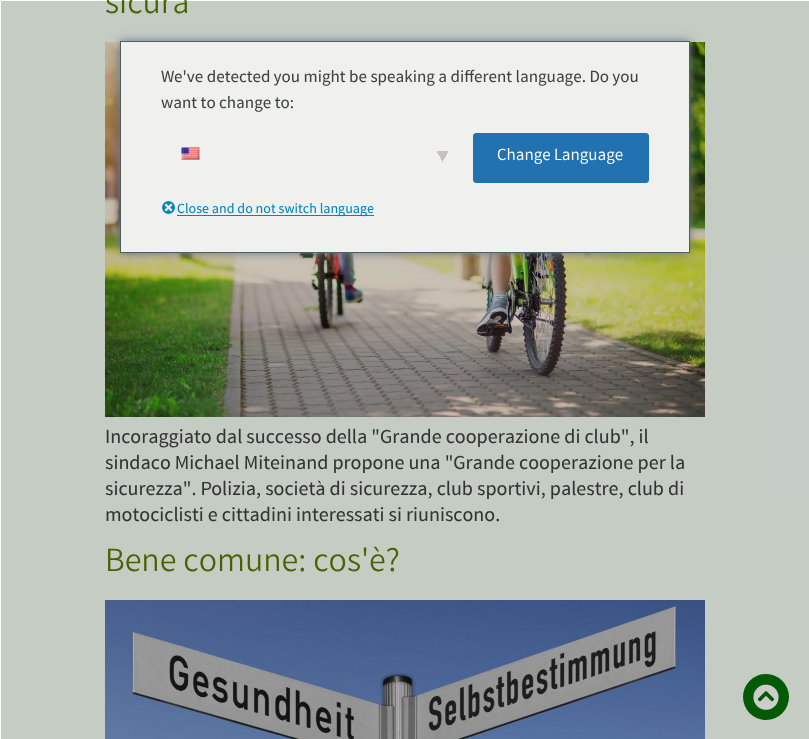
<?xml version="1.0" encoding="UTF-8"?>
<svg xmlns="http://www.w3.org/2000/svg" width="809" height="739">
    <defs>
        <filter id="blur1" x="-50%" y="-200%" width="200%" height="500%"><feGaussianBlur stdDeviation="5"/></filter>
        <linearGradient id="g1" gradientUnits="userSpaceOnUse" x1="441" y1="154" x2="450" y2="159"><stop offset="0.5" stop-color="#C9C0BB"/><stop offset="0.5" stop-color="#F0F0EE"/></linearGradient>
        <linearGradient id="g2" gradientUnits="userSpaceOnUse" x1="435" y1="159" x2="444" y2="154"><stop offset="0.5" stop-color="#F0F0EE"/><stop offset="0.5" stop-color="#C9C0BB"/></linearGradient>
    </defs>
    <rect width="100%" height="100%" fill="#F6FFF6"/>
    <text x="105" y="13" font-family="Varta" font-size="34" font-weight="300" fill="#5A7B02">sicura</text>
    <image x="105" y="42" width="600" height="375" href="img_01.png"/>
    <text font-family="Varta" font-size="20" font-weight="500" fill="#3D443B">
        <tspan x="105" y="443">Incoraggiato dal successo della "Grande cooperazione di club", il</tspan>
        <tspan x="105" y="469">sindaco Michael Miteinand propone una "Grande cooperazione per la</tspan>
        <tspan x="105" y="495">sicurezza". Polizia, società di sicurezza, club sportivi, palestre, club di</tspan>
        <tspan x="105" y="521">motociclisti e cittadini interessati si riuniscono.</tspan>
    </text>
    <text x="105" y="571" font-family="Varta" font-size="34" font-weight="300" fill="#5A7B02">Bene comune: cos'è?</text>
    <image x="105" y="600" width="600" height="139" href="img_02.png"/>
    <circle cx="766" cy="697" r="23" fill="#047006"/>
    <image x="753" y="684" width="26" height="26" href="img_05.png"/>
    <rect x="1" y="1" width="808" height="738" fill="#000000" fill-opacity="0.2"/>
    <rect x="120" y="41" width="570" height="212" fill="#6C7781" filter="url(#blur1)"/>
    <rect x="120.5" y="41.5" width="569" height="211" fill="#F0F0EE" stroke="#4C6066"/>
    <text font-family="Varta" font-size="17" font-weight="500" fill="#3D443B">
        <tspan x="161" y="82">We've detected you might be speaking a different language. Do you</tspan>
        <tspan x="161" y="108">want to change to:</tspan>
    </text>
    <rect x="443" y="151" width="5" height="12" fill="url(#g1)"/>
    <rect x="437" y="151" width="6" height="12" fill="url(#g2)"/>
    <image x="181" y="147" width="19" height="13" href="img_03.png"/>
    <rect x="473.5" y="133.5" width="175" height="49" rx="2.5" fill="#2271B1" stroke="#2271B1"/>
    <text x="497" y="160" font-family="Varta" font-size="17" fill="#FFFFFF">Change Language</text>
    <image x="162" y="201" width="13" height="13" href="img_04.png"/>
    <rect x="177" y="215" width="197" height="1" fill="#0085BA"/>
    <text x="177" y="213" font-family="Varta" font-size="14" font-weight="500" fill="#0085BA">Close and do not switch language</text>
</svg>
